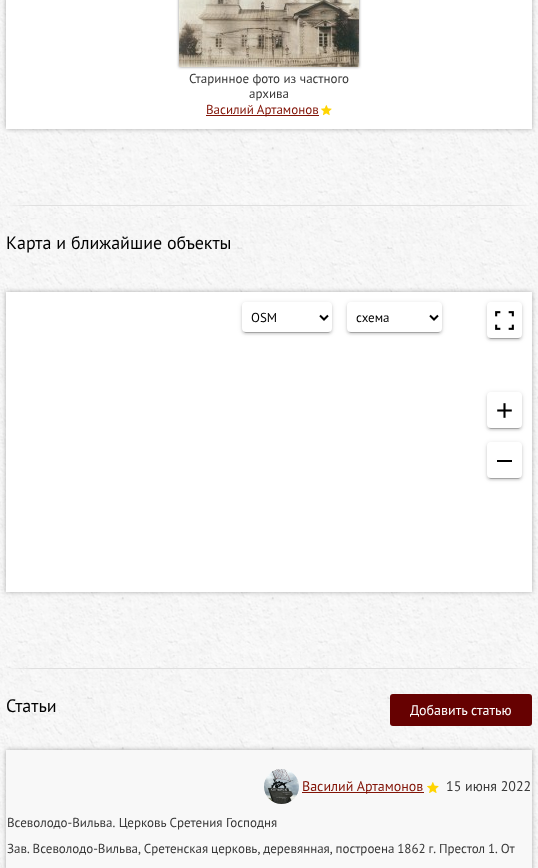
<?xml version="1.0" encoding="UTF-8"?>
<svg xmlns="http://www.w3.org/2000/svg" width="538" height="868">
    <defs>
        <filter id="blur1" x="-50%" y="-200%" width="200%" height="500%"><feGaussianBlur stdDeviation="2.5"/></filter>
        <filter id="blur2" x="-50%" y="-200%" width="200%" height="500%"><feGaussianBlur stdDeviation="1.5"/></filter>
        <filter id="blur3" x="-50%" y="-200%" width="200%" height="500%"><feGaussianBlur stdDeviation="1"/></filter>
        <filter id="blur4" x="-50%" y="-200%" width="200%" height="500%"><feGaussianBlur stdDeviation="0.5"/></filter>
    </defs>
    <rect width="100%" height="100%" fill="#FFFFFF"/>
    <image x="0" y="0" width="538" height="868" href="img_01.png"/>
    <rect x="6" y="-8" width="526" height="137" fill="#000000" fill-opacity="0.3" filter="url(#blur1)"/>
    <rect x="6" y="0" width="526" height="129" fill="#FFFFFF"/>
    <rect x="179" y="-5" width="180" height="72" fill="#000000" fill-opacity="0.45" filter="url(#blur2)"/>
    <image x="179" y="0" width="180" height="67" href="img_02.png"/>
    <text x="189" y="83" font-family="PT Sans" font-size="13" fill="#383838">Старинное фото из частного</text>
    <text x="249" y="98" font-family="PT Sans" font-size="13" fill="#383838">архива</text>
    <rect x="206" y="115" width="113" height="1" fill="#821407"/>
    <text x="206" y="114" font-family="PT Sans" font-size="13" fill="#821407">Василий Артамонов</text>
    <image x="321" y="105" width="11" height="11" href="img_03.png"/>
    <text x="6" y="249" font-family="PT Sans" font-size="18" fill="#000000">Карта и ближайшие объекты</text>
    <rect x="6" y="292" width="526" height="300" fill="#000000" fill-opacity="0.3" filter="url(#blur1)"/>
    <rect x="6" y="292" width="526" height="300" fill="#FFFFFF"/>
    <rect x="242" y="303" width="90" height="30" rx="4" fill="#000000" fill-opacity="0.12" filter="url(#blur1)"/>
    <rect x="242" y="304" width="90" height="30" rx="4" fill="#000000" fill-opacity="0.14" filter="url(#blur3)"/>
    <rect x="244" y="307" width="86" height="26" rx="2" fill="#000000" fill-opacity="0.2" filter="url(#blur4)"/>
    <rect x="242" y="302" width="90" height="30" rx="4" fill="#FFFFFF"/>
    <path d="M 320 315.5 L 324 319.5 L 328 315.5" fill="none" stroke="#000000" stroke-width="2"/>
    <text x="251" y="322" font-family="PT Sans" font-size="13" fill="#000000">OSM</text>
    <rect x="347" y="303" width="95" height="30" rx="4" fill="#000000" fill-opacity="0.12" filter="url(#blur1)"/>
    <rect x="347" y="304" width="95" height="30" rx="4" fill="#000000" fill-opacity="0.14" filter="url(#blur3)"/>
    <rect x="349" y="307" width="91" height="26" rx="2" fill="#000000" fill-opacity="0.2" filter="url(#blur4)"/>
    <rect x="347" y="302" width="95" height="30" rx="4" fill="#FFFFFF"/>
    <path d="M 430 315.5 L 434 319.5 L 438 315.5" fill="none" stroke="#000000" stroke-width="2"/>
    <text x="356" y="322" font-family="PT Sans" font-size="13" fill="#000000">схема</text>
    <rect x="487" y="303" width="35" height="36" rx="4" fill="#000000" fill-opacity="0.12" filter="url(#blur1)"/>
    <rect x="487" y="304" width="35" height="36" rx="4" fill="#000000" fill-opacity="0.14" filter="url(#blur3)"/>
    <rect x="489" y="307" width="31" height="32" rx="2" fill="#000000" fill-opacity="0.2" filter="url(#blur4)"/>
    <rect x="487" y="302" width="35" height="36" rx="4" fill="#FFFFFF"/>
    <image x="495" y="311" width="19" height="19" href="img_04.png"/>
    <rect x="487" y="393" width="35" height="36" rx="4" fill="#000000" fill-opacity="0.12" filter="url(#blur1)"/>
    <rect x="487" y="394" width="35" height="36" rx="4" fill="#000000" fill-opacity="0.14" filter="url(#blur3)"/>
    <rect x="489" y="397" width="31" height="32" rx="2" fill="#000000" fill-opacity="0.2" filter="url(#blur4)"/>
    <rect x="487" y="392" width="35" height="36" rx="4" fill="#FFFFFF"/>
    <image x="497" y="403" width="15" height="15" href="img_05.png"/>
    <rect x="487" y="443" width="35" height="36" rx="4" fill="#000000" fill-opacity="0.12" filter="url(#blur1)"/>
    <rect x="487" y="444" width="35" height="36" rx="4" fill="#000000" fill-opacity="0.14" filter="url(#blur3)"/>
    <rect x="489" y="447" width="31" height="32" rx="2" fill="#000000" fill-opacity="0.2" filter="url(#blur4)"/>
    <rect x="487" y="442" width="35" height="36" rx="4" fill="#FFFFFF"/>
    <rect x="497" y="460" width="15" height="2" fill="#000000"/>
    <text x="6" y="712" font-family="PT Sans" font-size="18" fill="#000000">Статьи</text>
    <rect x="6" y="750" width="526" height="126" fill="#000000" fill-opacity="0.3" filter="url(#blur1)"/>
    <rect x="6" y="750" width="526" height="118" fill="#F8F8F8"/>
    <image x="264" y="769" width="35" height="35" href="img_06.png"/>
    <rect x="302" y="792" width="122" height="1" fill="#821407"/>
    <text x="302" y="791" font-family="PT Sans" font-size="14" fill="#821407">Василий Артамонов</text>
    <image x="427" y="782" width="12" height="11" href="img_07.png"/>
    <text x="446" y="791" font-family="PT Sans" font-size="14" fill="#383838">15 июня 2022</text>
    <text x="7" y="827" font-family="PT Sans" font-size="13" fill="#383838">Всеволодо-Вильва. Церковь Сретения Господня</text>
    <text x="7" y="853" word-spacing="-0.6" font-family="PT Sans" font-size="13" fill="#383838">Зав. Всеволодо-Вильва, Сретенская церковь, деревянная, построена 1862 г. Престол 1. От</text>
    <rect x="390" y="694" width="142" height="32" rx="3" fill="#660101"/>
    <text x="410" y="715" font-family="PT Sans" font-size="14" fill="#FFFFFF">Добавить статью</text>
</svg>
